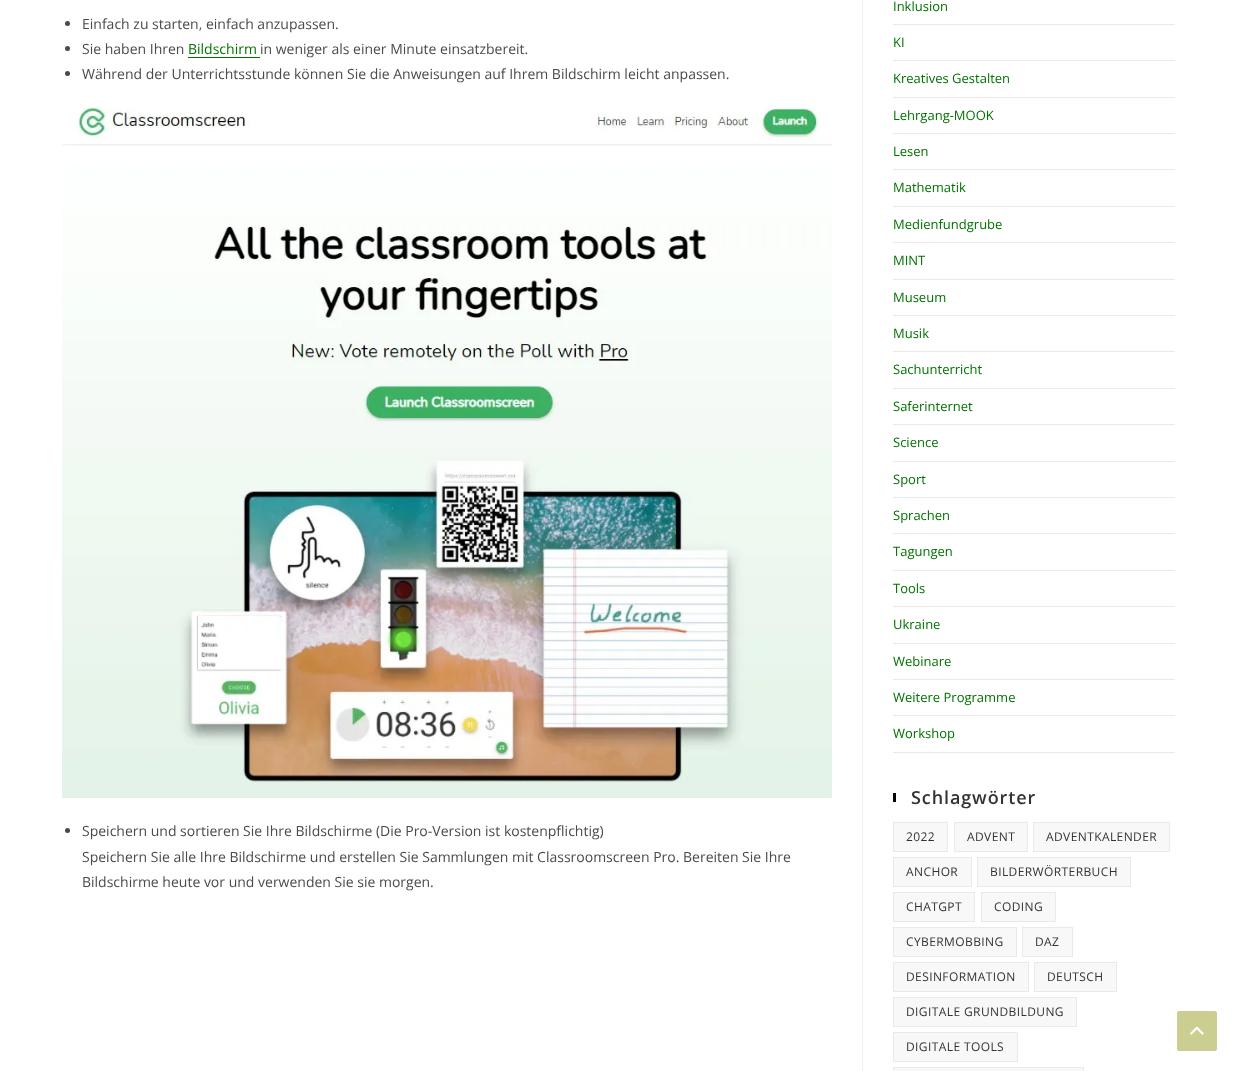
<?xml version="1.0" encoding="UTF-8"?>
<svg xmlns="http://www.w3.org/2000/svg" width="1237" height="1071">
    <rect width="100%" height="100%" fill="#FFFFFF"/>
    <rect x="862" y="0" width="1" height="1071" fill="#F1F1F1"/>
    <circle cx="67.5" cy="23.5" r="2.5" fill="#4A4A4A"/>
    <text x="82" y="29" font-family="Open Sans" font-size="14" fill="#4A4A4A">Einfach zu starten, einfach anzupassen.</text>
    <circle cx="67.5" cy="48.5" r="2.5" fill="#4A4A4A"/>
    <text x="82" y="54" font-family="Open Sans" font-size="14" fill="#4A4A4A">Sie haben Ihren</text>
    <text x="188" y="54" font-family="Open Sans" font-size="14" fill="#007200">Bildschirm</text>
    <rect x="188" y="57" width="72" height="1" fill="#007200"/>
    <text x="260" y="54" font-family="Open Sans" font-size="14" fill="#4A4A4A">in weniger als einer Minute einsatzbereit.</text>
    <circle cx="67.5" cy="73.5" r="2.5" fill="#4A4A4A"/>
    <text x="82" y="79" font-family="Open Sans" font-size="14" fill="#4A4A4A">Während der Unterrichtsstunde können Sie die Anweisungen auf Ihrem Bildschirm leicht anpassen.</text>
    <image x="62" y="107" width="770" height="691" href="img_01.png"/>
    <circle cx="67.5" cy="830.5" r="2.5" fill="#4A4A4A"/>
    <text font-family="Open Sans" font-size="14" fill="#4A4A4A">
        <tspan x="82" y="836">Speichern und sortieren Sie Ihre Bildschirme (Die Pro-Version ist kostenpflichtig)</tspan>
        <tspan x="82" y="862">Speichern Sie alle Ihre Bildschirme und erstellen Sie Sammlungen mit Classroomscreen Pro. Bereiten Sie Ihre</tspan>
        <tspan x="82" y="887">Bildschirme heute vor und verwenden Sie sie morgen.</tspan>
    </text>
    <rect x="893" y="24" width="282" height="1" fill="#E9E9E9"/>
    <text x="893" y="11" font-family="Open Sans" font-size="13" fill="#007200">Inklusion</text>
    <rect x="893" y="60" width="282" height="1" fill="#E9E9E9"/>
    <text x="893" y="47" font-family="Open Sans" font-size="13" fill="#007200">KI</text>
    <rect x="893" y="97" width="282" height="1" fill="#E9E9E9"/>
    <text x="893" y="83" font-family="Open Sans" font-size="13" fill="#007200">Kreatives Gestalten</text>
    <rect x="893" y="133" width="282" height="1" fill="#E9E9E9"/>
    <text x="893" y="120" font-family="Open Sans" font-size="13" fill="#007200">Lehrgang-MOOK</text>
    <rect x="893" y="169" width="282" height="1" fill="#E9E9E9"/>
    <text x="893" y="156" font-family="Open Sans" font-size="13" fill="#007200">Lesen</text>
    <rect x="893" y="206" width="282" height="1" fill="#E9E9E9"/>
    <text x="893" y="192" font-family="Open Sans" font-size="13" fill="#007200">Mathematik</text>
    <rect x="893" y="242" width="282" height="1" fill="#E9E9E9"/>
    <text x="893" y="229" font-family="Open Sans" font-size="13" fill="#007200">Medienfundgrube</text>
    <rect x="893" y="279" width="282" height="1" fill="#E9E9E9"/>
    <text x="893" y="265" font-family="Open Sans" font-size="13" fill="#007200">MINT</text>
    <rect x="893" y="315" width="282" height="1" fill="#E9E9E9"/>
    <text x="893" y="302" font-family="Open Sans" font-size="13" fill="#007200">Museum</text>
    <rect x="893" y="351" width="282" height="1" fill="#E9E9E9"/>
    <text x="893" y="338" font-family="Open Sans" font-size="13" fill="#007200">Musik</text>
    <rect x="893" y="388" width="282" height="1" fill="#E9E9E9"/>
    <text x="893" y="374" font-family="Open Sans" font-size="13" fill="#007200">Sachunterricht</text>
    <rect x="893" y="424" width="282" height="1" fill="#E9E9E9"/>
    <text x="893" y="411" font-family="Open Sans" font-size="13" fill="#007200">Saferinternet</text>
    <rect x="893" y="461" width="282" height="1" fill="#E9E9E9"/>
    <text x="893" y="447" font-family="Open Sans" font-size="13" fill="#007200">Science</text>
    <rect x="893" y="497" width="282" height="1" fill="#E9E9E9"/>
    <text x="893" y="484" font-family="Open Sans" font-size="13" fill="#007200">Sport</text>
    <rect x="893" y="533" width="282" height="1" fill="#E9E9E9"/>
    <text x="893" y="520" font-family="Open Sans" font-size="13" fill="#007200">Sprachen</text>
    <rect x="893" y="570" width="282" height="1" fill="#E9E9E9"/>
    <text x="893" y="556" font-family="Open Sans" font-size="13" fill="#007200">Tagungen</text>
    <rect x="893" y="606" width="282" height="1" fill="#E9E9E9"/>
    <text x="893" y="593" font-family="Open Sans" font-size="13" fill="#007200">Tools</text>
    <rect x="893" y="643" width="282" height="1" fill="#E9E9E9"/>
    <text x="893" y="629" font-family="Open Sans" font-size="13" fill="#007200">Ukraine</text>
    <rect x="893" y="679" width="282" height="1" fill="#E9E9E9"/>
    <text x="893" y="666" font-family="Open Sans" font-size="13" fill="#007200">Webinare</text>
    <rect x="893" y="715" width="282" height="1" fill="#E9E9E9"/>
    <text x="893" y="702" font-family="Open Sans" font-size="13" fill="#007200">Weitere Programme</text>
    <rect x="893" y="752" width="282" height="1" fill="#E9E9E9"/>
    <text x="893" y="738" font-family="Open Sans" font-size="13" fill="#007200">Workshop</text>
    <rect x="893" y="793" width="3" height="9" fill="#0A0000"/>
    <text x="911" y="804" font-family="Open Sans" font-size="18" font-weight="600" letter-spacing="0.9" fill="#333333">Schlagwörter</text>
    <rect x="893.5" y="822.5" width="54" height="29" fill="#F8F8F8" stroke="#E9E9E9"/>
    <text x="906" y="841" font-family="Open Sans" font-size="12" letter-spacing="0.4" fill="#333333">2022</text>
    <rect x="954.5" y="822.5" width="73" height="29" fill="#F8F8F8" stroke="#E9E9E9"/>
    <text x="967" y="841" font-family="Open Sans" font-size="12" letter-spacing="0.4" fill="#333333">ADVENT</text>
    <rect x="1033.5" y="822.5" width="136" height="29" fill="#F8F8F8" stroke="#E9E9E9"/>
    <text x="1046" y="841" font-family="Open Sans" font-size="12" letter-spacing="0.4" fill="#333333">ADVENTKALENDER</text>
    <rect x="893.5" y="857.5" width="78" height="29" fill="#F8F8F8" stroke="#E9E9E9"/>
    <text x="906" y="876" font-family="Open Sans" font-size="12" letter-spacing="0.4" fill="#333333">ANCHOR</text>
    <rect x="977.5" y="857.5" width="153" height="29" fill="#F8F8F8" stroke="#E9E9E9"/>
    <text x="990" y="876" font-family="Open Sans" font-size="12" letter-spacing="0.4" fill="#333333">BILDERWÖRTERBUCH</text>
    <rect x="893.5" y="892.5" width="81" height="29" fill="#F8F8F8" stroke="#E9E9E9"/>
    <text x="906" y="911" font-family="Open Sans" font-size="12" letter-spacing="0.4" fill="#333333">CHATGPT</text>
    <rect x="981.5" y="892.5" width="74" height="29" fill="#F8F8F8" stroke="#E9E9E9"/>
    <text x="994" y="911" font-family="Open Sans" font-size="12" letter-spacing="0.4" fill="#333333">CODING</text>
    <rect x="893.5" y="927.5" width="123" height="29" fill="#F8F8F8" stroke="#E9E9E9"/>
    <text x="906" y="946" font-family="Open Sans" font-size="12" letter-spacing="0.4" fill="#333333">CYBERMOBBING</text>
    <rect x="1022.5" y="927.5" width="50" height="29" fill="#F8F8F8" stroke="#E9E9E9"/>
    <text x="1035" y="946" font-family="Open Sans" font-size="12" letter-spacing="0.4" fill="#333333">DAZ</text>
    <rect x="893.5" y="962.5" width="135" height="29" fill="#F8F8F8" stroke="#E9E9E9"/>
    <text x="906" y="981" font-family="Open Sans" font-size="12" letter-spacing="0.4" fill="#333333">DESINFORMATION</text>
    <rect x="1034.5" y="962.5" width="82" height="29" fill="#F8F8F8" stroke="#E9E9E9"/>
    <text x="1047" y="981" font-family="Open Sans" font-size="12" letter-spacing="0.4" fill="#333333">DEUTSCH</text>
    <rect x="893.5" y="997.5" width="183" height="29" fill="#F8F8F8" stroke="#E9E9E9"/>
    <text x="906" y="1016" font-family="Open Sans" font-size="12" letter-spacing="0.4" fill="#333333">DIGITALE GRUNDBILDUNG</text>
    <rect x="893.5" y="1032.5" width="124" height="29" fill="#F8F8F8" stroke="#E9E9E9"/>
    <text x="906" y="1051" font-family="Open Sans" font-size="12" letter-spacing="0.4" fill="#333333">DIGITALE TOOLS</text>
    <rect x="893.5" y="1067.5" width="190" height="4" fill="#F8F8F8" stroke="#E9E9E9"/>
    <rect x="1177" y="1011" width="40" height="40" rx="2" fill="#CCCD90"/>
    <image x="1190" y="1026" width="14" height="9" href="img_02.png"/>
</svg>
